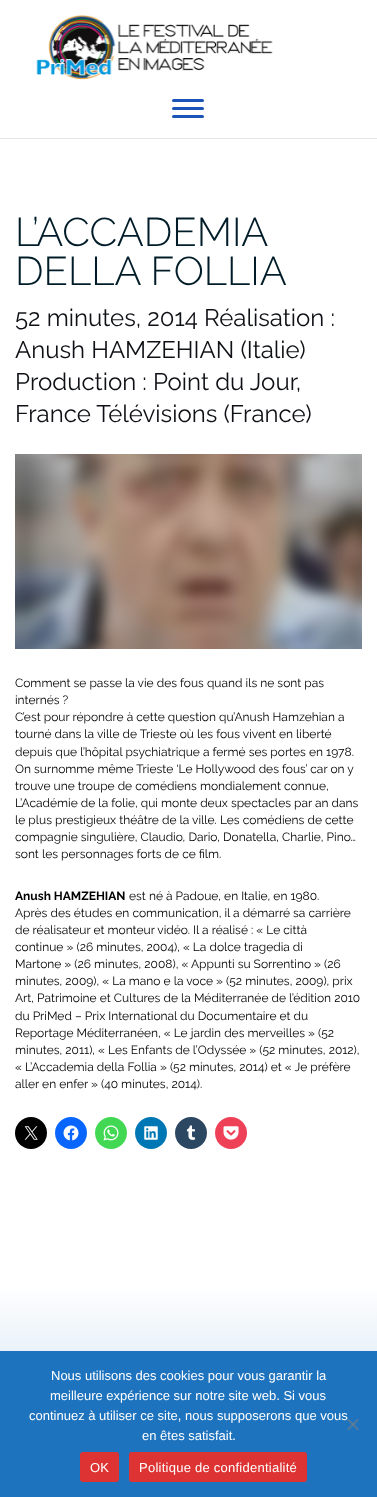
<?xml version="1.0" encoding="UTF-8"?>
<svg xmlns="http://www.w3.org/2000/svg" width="377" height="1497">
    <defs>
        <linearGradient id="g1" gradientUnits="userSpaceOnUse" x1="189" y1="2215" x2="189" y2="1283"><stop offset="0.17" stop-color="#1068BB"/><stop offset="1" stop-color="#FFFFFF"/></linearGradient>
    </defs>
    <rect width="100%" height="100%" fill="#FFFFFF"/>
    <rect x="0" y="138" width="377" height="1" fill="#E6E6E6"/>
    <image x="36" y="15" width="237" height="65" href="img_01.png"/>
    <rect x="172" y="99" width="32" height="3" rx="1.5" fill="#1D54B8"/>
    <rect x="172" y="107" width="32" height="3" rx="1.5" fill="#1D54B8"/>
    <rect x="172" y="115" width="32" height="3" rx="1.5" fill="#1D54B8"/>
    <text font-family="Raleway" font-size="40" font-weight="300" fill="#001C28">
        <tspan x="15" y="246">L’ACCADEMIA</tspan>
        <tspan x="15" y="285">DELLA FOLLIA</tspan>
    </text>
    <text font-family="Raleway" font-size="24" fill="#0E1015">
        <tspan x="15" y="326">52 minutes, 2014 Réalisation :</tspan>
        <tspan x="15" y="358">Anush HAMZEHIAN (Italie)</tspan>
        <tspan x="15" y="390">Production : Point du Jour,</tspan>
        <tspan x="15" y="422">France Télévisions (France)</tspan>
    </text>
    <image x="15" y="454" width="347" height="195" href="img_02.png"/>
    <text font-family="Raleway" font-size="12" fill="#000000">
        <tspan x="15" y="687">Comment se passe la vie des fous quand ils ne sont pas</tspan>
        <tspan x="15" y="704">internés ?</tspan>
        <tspan x="15" y="721">C’est pour répondre à cette question qu’Anush Hamzehian a</tspan>
        <tspan x="15" y="738">tourné dans la ville de Trieste où les fous vivent en liberté</tspan>
        <tspan x="15" y="756">depuis que l’hôpital psychiatrique a fermé ses portes en 1978.</tspan>
        <tspan x="15" y="773">On surnomme même Trieste ‘Le Hollywood des fous’ car on y</tspan>
        <tspan x="15" y="790">trouve une troupe de comédiens mondialement connue,</tspan>
        <tspan x="15" y="807">L’Académie de la folie, qui monte deux spectacles par an dans</tspan>
        <tspan x="15" y="824">le plus prestigieux théâtre de la ville. Les comédiens de cette</tspan>
        <tspan x="15" y="841">compagnie singulière, Claudio, Dario, Donatella, Charlie, Pino…</tspan>
        <tspan x="15" y="858">sont les personnages forts de ce film.</tspan>
    </text>
    <text x="15" y="900" font-family="Raleway" font-size="12" font-weight="700" fill="#000000">Anush HAMZEHIAN</text>
    <text x="129" y="900" font-family="Raleway" font-size="12" fill="#000000">est né à Padoue, en Italie, en 1980.</text>
    <text font-family="Raleway" font-size="12" fill="#000000">
        <tspan x="15" y="917">Après des études en communication, il a démarré sa carrière</tspan>
        <tspan x="15" y="934">de réalisateur et monteur vidéo. Il a réalisé : « Le città</tspan>
        <tspan x="15" y="951">continue » (26 minutes, 2004), « La dolce tragedia di</tspan>
        <tspan x="15" y="968">Martone » (26 minutes, 2008), « Appunti su Sorrentino » (26</tspan>
        <tspan x="15" y="985">minutes, 2009), « La mano e la voce » (52 minutes, 2009), prix</tspan>
        <tspan x="15" y="1002">Art, Patrimoine et Cultures de la Méditerranée de l’édition 2010</tspan>
        <tspan x="15" y="1020">du PriMed – Prix International du Documentaire et du</tspan>
        <tspan x="15" y="1037">Reportage Méditerranéen, « Le jardin des merveilles » (52</tspan>
        <tspan x="15" y="1054">minutes, 2011), « Les Enfants de l’Odyssée » (52 minutes, 2012),</tspan>
        <tspan x="15" y="1071">« L’Accademia della Follia » (52 minutes, 2014) et « Je préfère</tspan>
        <tspan x="15" y="1088">aller en enfer » (40 minutes, 2014).</tspan>
    </text>
    <circle cx="31" cy="1133" r="16" fill="#000000"/>
    <image x="24" y="1126" width="14" height="14" href="img_03.png"/>
    <circle cx="71" cy="1133" r="16" fill="#0866FF"/>
    <image x="63" y="1125" width="16" height="16" href="img_04.png"/>
    <circle cx="111" cy="1133" r="16" fill="#43D854"/>
    <image x="103" y="1125" width="16" height="16" href="img_05.png"/>
    <circle cx="151" cy="1133" r="16" fill="#0077B5"/>
    <image x="144" y="1126" width="14" height="14" href="img_06.png"/>
    <circle cx="191" cy="1133" r="16" fill="#2C4762"/>
    <image x="186" y="1125" width="10" height="15" href="img_07.png"/>
    <circle cx="231" cy="1133" r="16" fill="#EE4056"/>
    <image x="223" y="1126" width="16" height="14" href="img_08.png"/>
    <rect x="0" y="1291" width="377" height="60" fill="url(#g1)"/>
    <rect x="0" y="1351" width="377" height="146" fill="#1E73BE"/>
    <text x="51" y="1380" font-family="Liberation Sans" font-size="13" fill="#FFFFFF">Nous utilisons des cookies pour vous garantir la</text>
    <text x="50" y="1400" font-family="Liberation Sans" font-size="13" fill="#FFFFFF">meilleure expérience sur notre site web. Si vous</text>
    <text x="29" y="1420" font-family="Liberation Sans" font-size="13" fill="#FFFFFF">continuez à utiliser ce site, nous supposerons que vous</text>
    <text x="142" y="1440" font-family="Liberation Sans" font-size="13" fill="#FFFFFF">en êtes satisfait.</text>
    <path d="M 357.5 1418.5 L 359 1420 L 348.5 1430.5 L 347 1429 Z" fill="#4F7A9F"/>
    <path d="M 347 1420 L 348.5 1418.5 L 359 1429 L 357.5 1430.5 Z" fill="#808080" fill-opacity="0.5"/>
    <rect x="80" y="1452" width="39" height="30" rx="3" fill="#DD3333"/>
    <text x="90" y="1472" font-family="Liberation Sans" font-size="13" letter-spacing="0.25" fill="#FFFFFF">OK</text>
    <rect x="129" y="1452" width="178" height="30" rx="3" fill="#DD3333"/>
    <text x="139" y="1472" font-family="Liberation Sans" font-size="13" letter-spacing="0.25" fill="#FFFFFF">Politique de confidentialité</text>
</svg>
